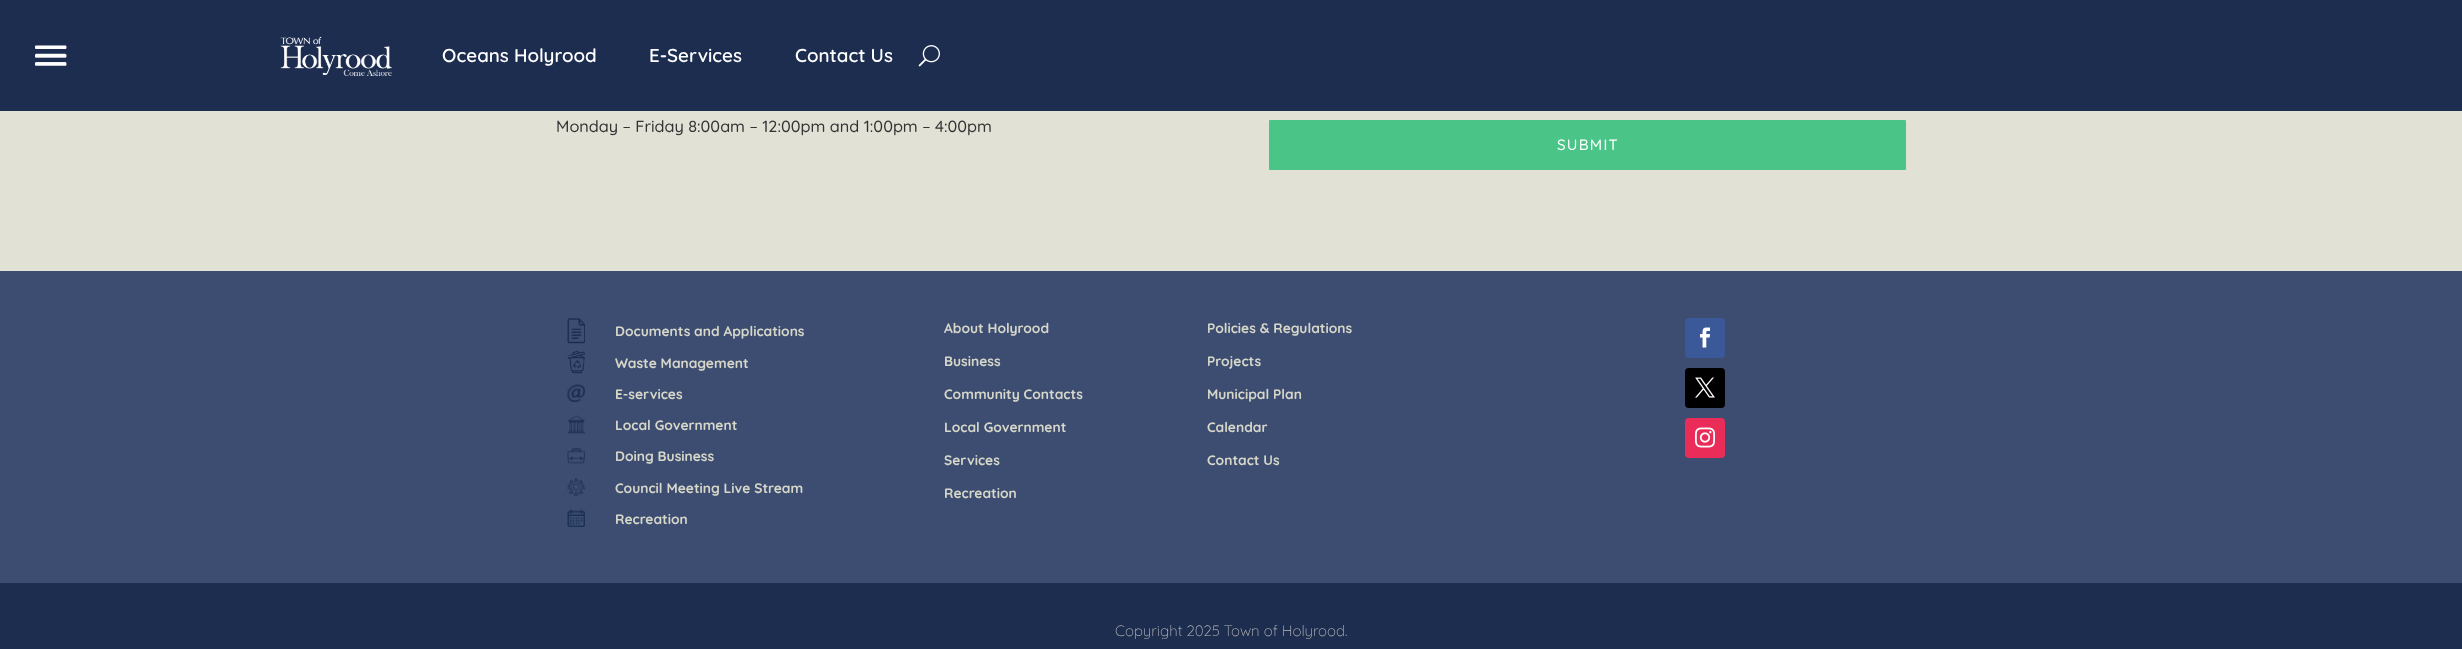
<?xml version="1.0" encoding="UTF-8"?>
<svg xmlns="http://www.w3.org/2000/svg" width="2462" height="649">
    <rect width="100%" height="100%" fill="#E1E1D6"/>
    <rect x="0" y="0" width="2462" height="111" fill="#1D2D50"/>
    <image x="35" y="45" width="32" height="21" href="img_01.png"/>
    <image x="280" y="36" width="112" height="40" href="img_02.png"/>
    <text x="442" y="62" font-family="Quicksand" font-size="18.75" font-weight="600" fill="#FFFFFF">Oceans Holyrood</text>
    <text x="649" y="62" font-family="Quicksand" font-size="18.75" font-weight="600" fill="#FFFFFF">E-Services</text>
    <text x="795" y="62" font-family="Quicksand" font-size="18.75" font-weight="600" fill="#FFFFFF">Contact Us</text>
    <image x="918" y="45" width="22" height="22" href="img_03.png"/>
    <text x="556" y="132" font-family="Quicksand" font-size="16.25" font-weight="500" fill="#333333">Monday – Friday 8:00am – 12:00pm and 1:00pm – 4:00pm</text>
    <rect x="1269" y="120" width="637" height="50" rx="1" fill="#4BC587"/>
    <text x="1557" y="150" font-family="Quicksand" font-size="15" font-weight="500" letter-spacing="1.25" fill="#FFFFFF">SUBMIT</text>
    <rect x="0" y="271" width="2462" height="312" fill="#3C4D71"/>
    <image x="567" y="318" width="18" height="26" href="img_04.png"/>
    <text x="615" y="336" font-family="Quicksand" font-size="13.75" font-weight="700" fill="#D7D7C9">Documents and Applications</text>
    <image x="567" y="350" width="18" height="24" href="img_05.png"/>
    <text x="615" y="368" font-family="Quicksand" font-size="13.75" font-weight="700" fill="#D7D7C9">Waste Management</text>
    <image x="567" y="384" width="18" height="18" href="img_06.png"/>
    <text x="615" y="399" font-family="Quicksand" font-size="13.75" font-weight="700" fill="#D7D7C9">E-services</text>
    <image x="567" y="415" width="18" height="19" href="img_07.png"/>
    <text x="615" y="430" font-family="Quicksand" font-size="13.75" font-weight="700" fill="#D7D7C9">Local Government</text>
    <image x="567" y="448" width="18" height="16" href="img_08.png"/>
    <text x="615" y="461" font-family="Quicksand" font-size="13.75" font-weight="700" fill="#D7D7C9">Doing Business</text>
    <image x="567" y="478" width="18" height="18" href="img_09.png"/>
    <text x="615" y="493" font-family="Quicksand" font-size="13.75" font-weight="700" fill="#D7D7C9">Council Meeting Live Stream</text>
    <image x="567" y="509" width="18" height="18" href="img_10.png"/>
    <text x="615" y="524" font-family="Quicksand" font-size="13.75" font-weight="700" fill="#D7D7C9">Recreation</text>
    <text x="944" y="333" font-family="Quicksand" font-size="13.75" font-weight="700" fill="#D7D7C9">About Holyrood</text>
    <text x="944" y="366" font-family="Quicksand" font-size="13.75" font-weight="700" fill="#D7D7C9">Business</text>
    <text x="944" y="399" font-family="Quicksand" font-size="13.75" font-weight="700" fill="#D7D7C9">Community Contacts</text>
    <text x="944" y="432" font-family="Quicksand" font-size="13.75" font-weight="700" fill="#D7D7C9">Local Government</text>
    <text x="944" y="465" font-family="Quicksand" font-size="13.75" font-weight="700" fill="#D7D7C9">Services</text>
    <text x="944" y="498" font-family="Quicksand" font-size="13.75" font-weight="700" fill="#D7D7C9">Recreation</text>
    <text x="1207" y="333" font-family="Quicksand" font-size="13.75" font-weight="700" fill="#D7D7C9">Policies &amp; Regulations</text>
    <text x="1207" y="366" font-family="Quicksand" font-size="13.75" font-weight="700" fill="#D7D7C9">Projects</text>
    <text x="1207" y="399" font-family="Quicksand" font-size="13.75" font-weight="700" fill="#D7D7C9">Municipal Plan</text>
    <text x="1207" y="432" font-family="Quicksand" font-size="13.75" font-weight="700" fill="#D7D7C9">Calendar</text>
    <text x="1207" y="465" font-family="Quicksand" font-size="13.75" font-weight="700" fill="#D7D7C9">Contact Us</text>
    <rect x="1685" y="318" width="40" height="40" rx="4" fill="#3B5998"/>
    <image x="1700" y="327" width="10" height="21" href="img_11.png"/>
    <rect x="1685" y="368" width="40" height="40" rx="4" fill="#000000"/>
    <image x="1695" y="377" width="20" height="21" href="img_12.png"/>
    <rect x="1685" y="418" width="40" height="40" rx="4" fill="#EA2C59"/>
    <image x="1695" y="427" width="20" height="21" href="img_13.png"/>
    <rect x="0" y="583" width="2462" height="66" fill="#1D2D50"/>
    <text x="1115" y="636" font-family="Quicksand" font-size="15" font-weight="300" fill="#B7B7B7">Copyright 2025 Town of Holyrood.</text>
</svg>
